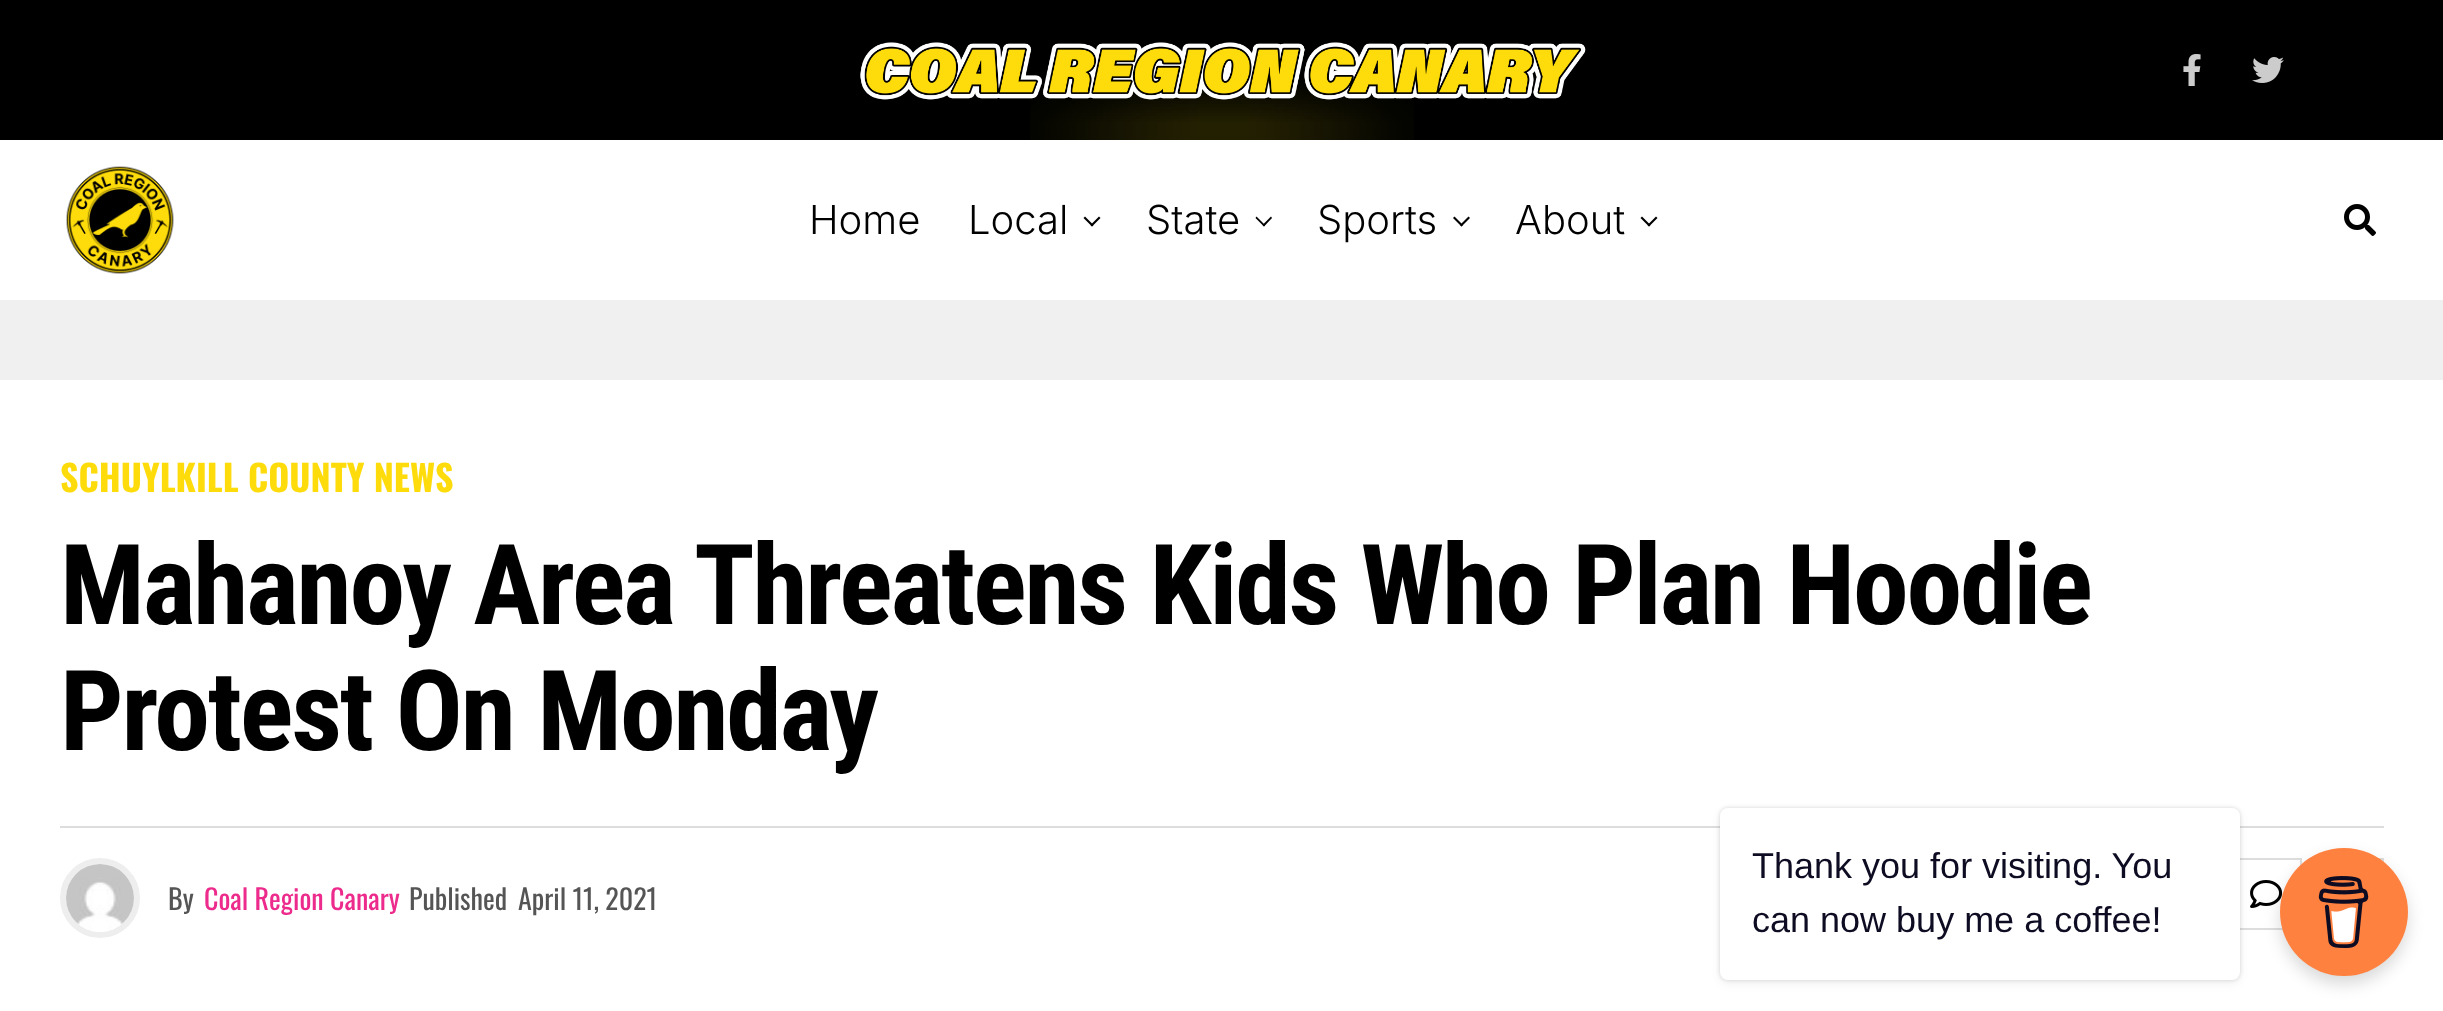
<?xml version="1.0" encoding="UTF-8"?>
<svg xmlns="http://www.w3.org/2000/svg" width="2443" height="1011">
    <defs>
        <filter id="blur1" x="-50%" y="-200%" width="200%" height="500%"><feGaussianBlur stdDeviation="8"/></filter>
        <filter id="blur2" x="-50%" y="-200%" width="200%" height="500%"><feGaussianBlur stdDeviation="2"/></filter>
        <filter id="blur3" x="-50%" y="-200%" width="200%" height="500%"><feGaussianBlur stdDeviation="5"/></filter>
    </defs>
    <rect width="100%" height="100%" fill="#F0F0F0"/>
    <rect x="0" y="0" width="2443" height="140" fill="#000000"/>
    <image x="1030" y="79" width="384" height="61" href="img_04.png"/>
    <image x="860" y="42" width="726" height="58" href="img_01.png"/>
    <image x="2183" y="54" width="18" height="32" href="img_02.png"/>
    <image x="2252" y="57" width="32" height="26" href="img_03.png"/>
    <rect x="0" y="140" width="2443" height="160" fill="#FFFFFF"/>
    <image x="66" y="166" width="108" height="108" href="img_05.png"/>
    <text x="809" y="234" font-family="Inter" font-size="40" font-weight="300" fill="#000000">Home</text>
    <text x="968" y="234" font-family="Inter" font-size="40" font-weight="300" fill="#000000">Local</text>
    <path d="M 1099 216.5 L 1100.5 218 L 1092 226.5 L 1090.5 225 Z" fill="#000000"/>
    <path d="M 1085 216.5 L 1093.5 225 L 1092 226.5 L 1083.5 218 Z" fill="#000000"/>
    <text x="1146" y="234" font-family="Inter" font-size="40" font-weight="300" fill="#000000">State</text>
    <path d="M 1271 216.5 L 1272 218 L 1264 226.5 L 1262.5 225 Z" fill="#000000"/>
    <path d="M 1256.5 216.5 L 1265 225 L 1264 226.5 L 1255.5 218 Z" fill="#000000"/>
    <text x="1317" y="234" font-family="Inter" font-size="40" font-weight="300" fill="#000000">Sports</text>
    <path d="M 1468.5 216.5 L 1470 218 L 1461.5 226.5 L 1460 225 Z" fill="#000000"/>
    <path d="M 1454.5 216.5 L 1463 225 L 1461.5 226.5 L 1453 218 Z" fill="#000000"/>
    <text x="1515" y="234" font-family="Inter" font-size="40" font-weight="300" fill="#000000">About</text>
    <path d="M 1656 216.5 L 1657.5 218 L 1649 226.5 L 1647.5 225 Z" fill="#000000"/>
    <path d="M 1642 216.5 L 1650.5 225 L 1649 226.5 L 1640.5 218 Z" fill="#000000"/>
    <image x="2344" y="204" width="32" height="32" href="img_06.png"/>
    <rect x="0" y="380" width="2443" height="631" fill="#FFFFFF"/>
    <text x="60" y="492" font-family="Oswald" font-size="36" font-weight="700" fill="#FEDB0A">SCHUYLKILL COUNTY NEWS</text>
    <text font-family="Roboto Condensed" font-size="112" font-weight="700" letter-spacing="-2.25" fill="#000000">
        <tspan x="60" y="624">Mahanoy Area Threatens Kids Who Plan Hoodie</tspan>
        <tspan x="60" y="750">Protest On Monday</tspan>
    </text>
    <rect x="60" y="826" width="2324" height="2" fill="#DDDDDD"/>
    <circle cx="100" cy="898" r="37" fill="none" stroke="#EEEEEE" stroke-width="6"/>
    <image x="66" y="864" width="68" height="68" href="img_07.png"/>
    <text x="168" y="910" font-family="Oswald" font-size="28" fill="#555555">By</text>
    <text x="204" y="910" font-family="Oswald" font-size="28" fill="#EC2B8C">Coal Region Canary</text>
    <text x="409" y="910" font-family="Oswald" font-size="28" fill="#555555">Published</text>
    <text x="518" y="910" font-family="Oswald" font-size="28" fill="#555555">April 11, 2021</text>
    <rect x="2231" y="859" width="70" height="70" fill="none" stroke="#DDDDDD" stroke-width="2"/>
    <image x="2250" y="880" width="33" height="28" href="img_08.png"/>
    <rect x="2313" y="859" width="70" height="70" fill="none" stroke="#DDDDDD" stroke-width="2"/>
    <rect x="2280" y="856" width="128" height="128" rx="64" fill="#000000" fill-opacity="0.15" filter="url(#blur1)"/>
    <circle cx="2344" cy="912" r="64" fill="#FF813F"/>
    <image x="2318" y="876" width="51" height="72" href="img_09.png"/>
    <rect x="1720" y="808" width="520" height="172" rx="8" fill="#000000" fill-opacity="0.15" filter="url(#blur2)"/>
    <rect x="1720" y="812" width="520" height="172" rx="8" fill="#000000" fill-opacity="0.05" filter="url(#blur3)"/>
    <rect x="1720" y="808" width="520" height="172" rx="8" fill="#FFFFFF"/>
    <text font-family="Liberation Sans" font-size="36" fill="#0D0C22">
        <tspan x="1752" y="878">Thank you for visiting. You</tspan>
        <tspan x="1752" y="932">can now buy me a coffee!</tspan>
    </text>
</svg>
